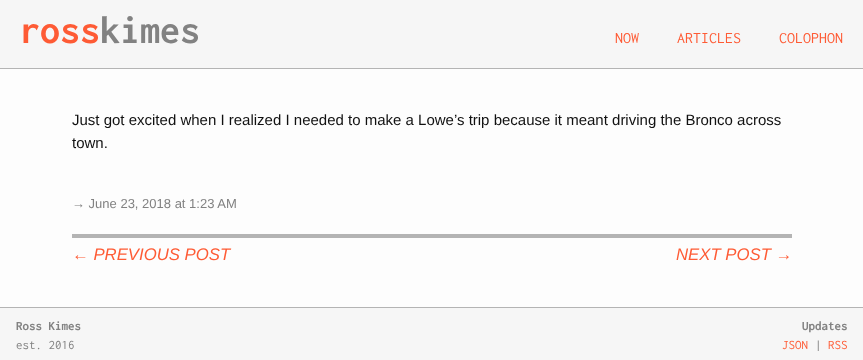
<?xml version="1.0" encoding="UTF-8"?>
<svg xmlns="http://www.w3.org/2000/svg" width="863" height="360">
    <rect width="100%" height="100%" fill="#F6F6F6"/>
    <rect x="0" y="68" width="863" height="1" fill="#B4B4B4"/>
    <text x="20" y="43" font-family="Inconsolata" font-size="40" font-weight="700" fill="#FE5B35">ross</text>
    <text x="100" y="43" font-family="Inconsolata" font-size="40" font-weight="700" fill="#828282">kimes</text>
    <text x="615" y="43" font-family="Inconsolata" font-size="16" fill="#FE5B35">NOW</text>
    <text x="677" y="43" font-family="Inconsolata" font-size="16" fill="#FE5B35">ARTICLES</text>
    <text x="779" y="43" font-family="Inconsolata" font-size="16" fill="#FE5B35">COLOPHON</text>
    <rect x="0" y="69" width="863" height="238" fill="#FDFDFD"/>
    <text font-family="Liberation Sans" font-size="15" fill="#111111">
        <tspan x="72" y="125">Just got excited when I realized I needed to make a Lowe’s trip because it meant driving the Bronco across</tspan>
        <tspan x="72" y="148">town.</tspan>
    </text>
    <text x="72" y="208" font-family="Liberation Sans" font-size="13" fill="#828282">→ June 23, 2018 at 1:23 AM</text>
    <rect x="72" y="234" width="720" height="4" fill="#B4B4B4"/>
    <text x="72" y="260" font-family="Liberation Sans" font-size="16.75" font-style="italic" fill="#FE5B35">← PREVIOUS POST</text>
    <text x="676" y="260" font-family="Liberation Sans" font-size="16.75" font-style="italic" fill="#FE5B35">NEXT POST →</text>
    <rect x="0" y="307" width="863" height="1" fill="#B4B4B4"/>
    <text x="16" y="330" font-family="Inconsolata" font-size="13" font-weight="700" fill="#828282">Ross Kimes</text>
    <text x="16" y="349" font-family="Inconsolata" font-size="13" fill="#828282">est. 2016</text>
    <text x="802" y="330" font-family="Inconsolata" font-size="13" font-weight="700" fill="#828282">Updates</text>
    <text x="782" y="349" font-family="Inconsolata" font-size="13" fill="#FE5B35">JSON</text>
    <text x="815" y="349" font-family="Inconsolata" font-size="13" fill="#828282">|</text>
    <text x="828" y="349" font-family="Inconsolata" font-size="13" fill="#FE5B35">RSS</text>
</svg>
